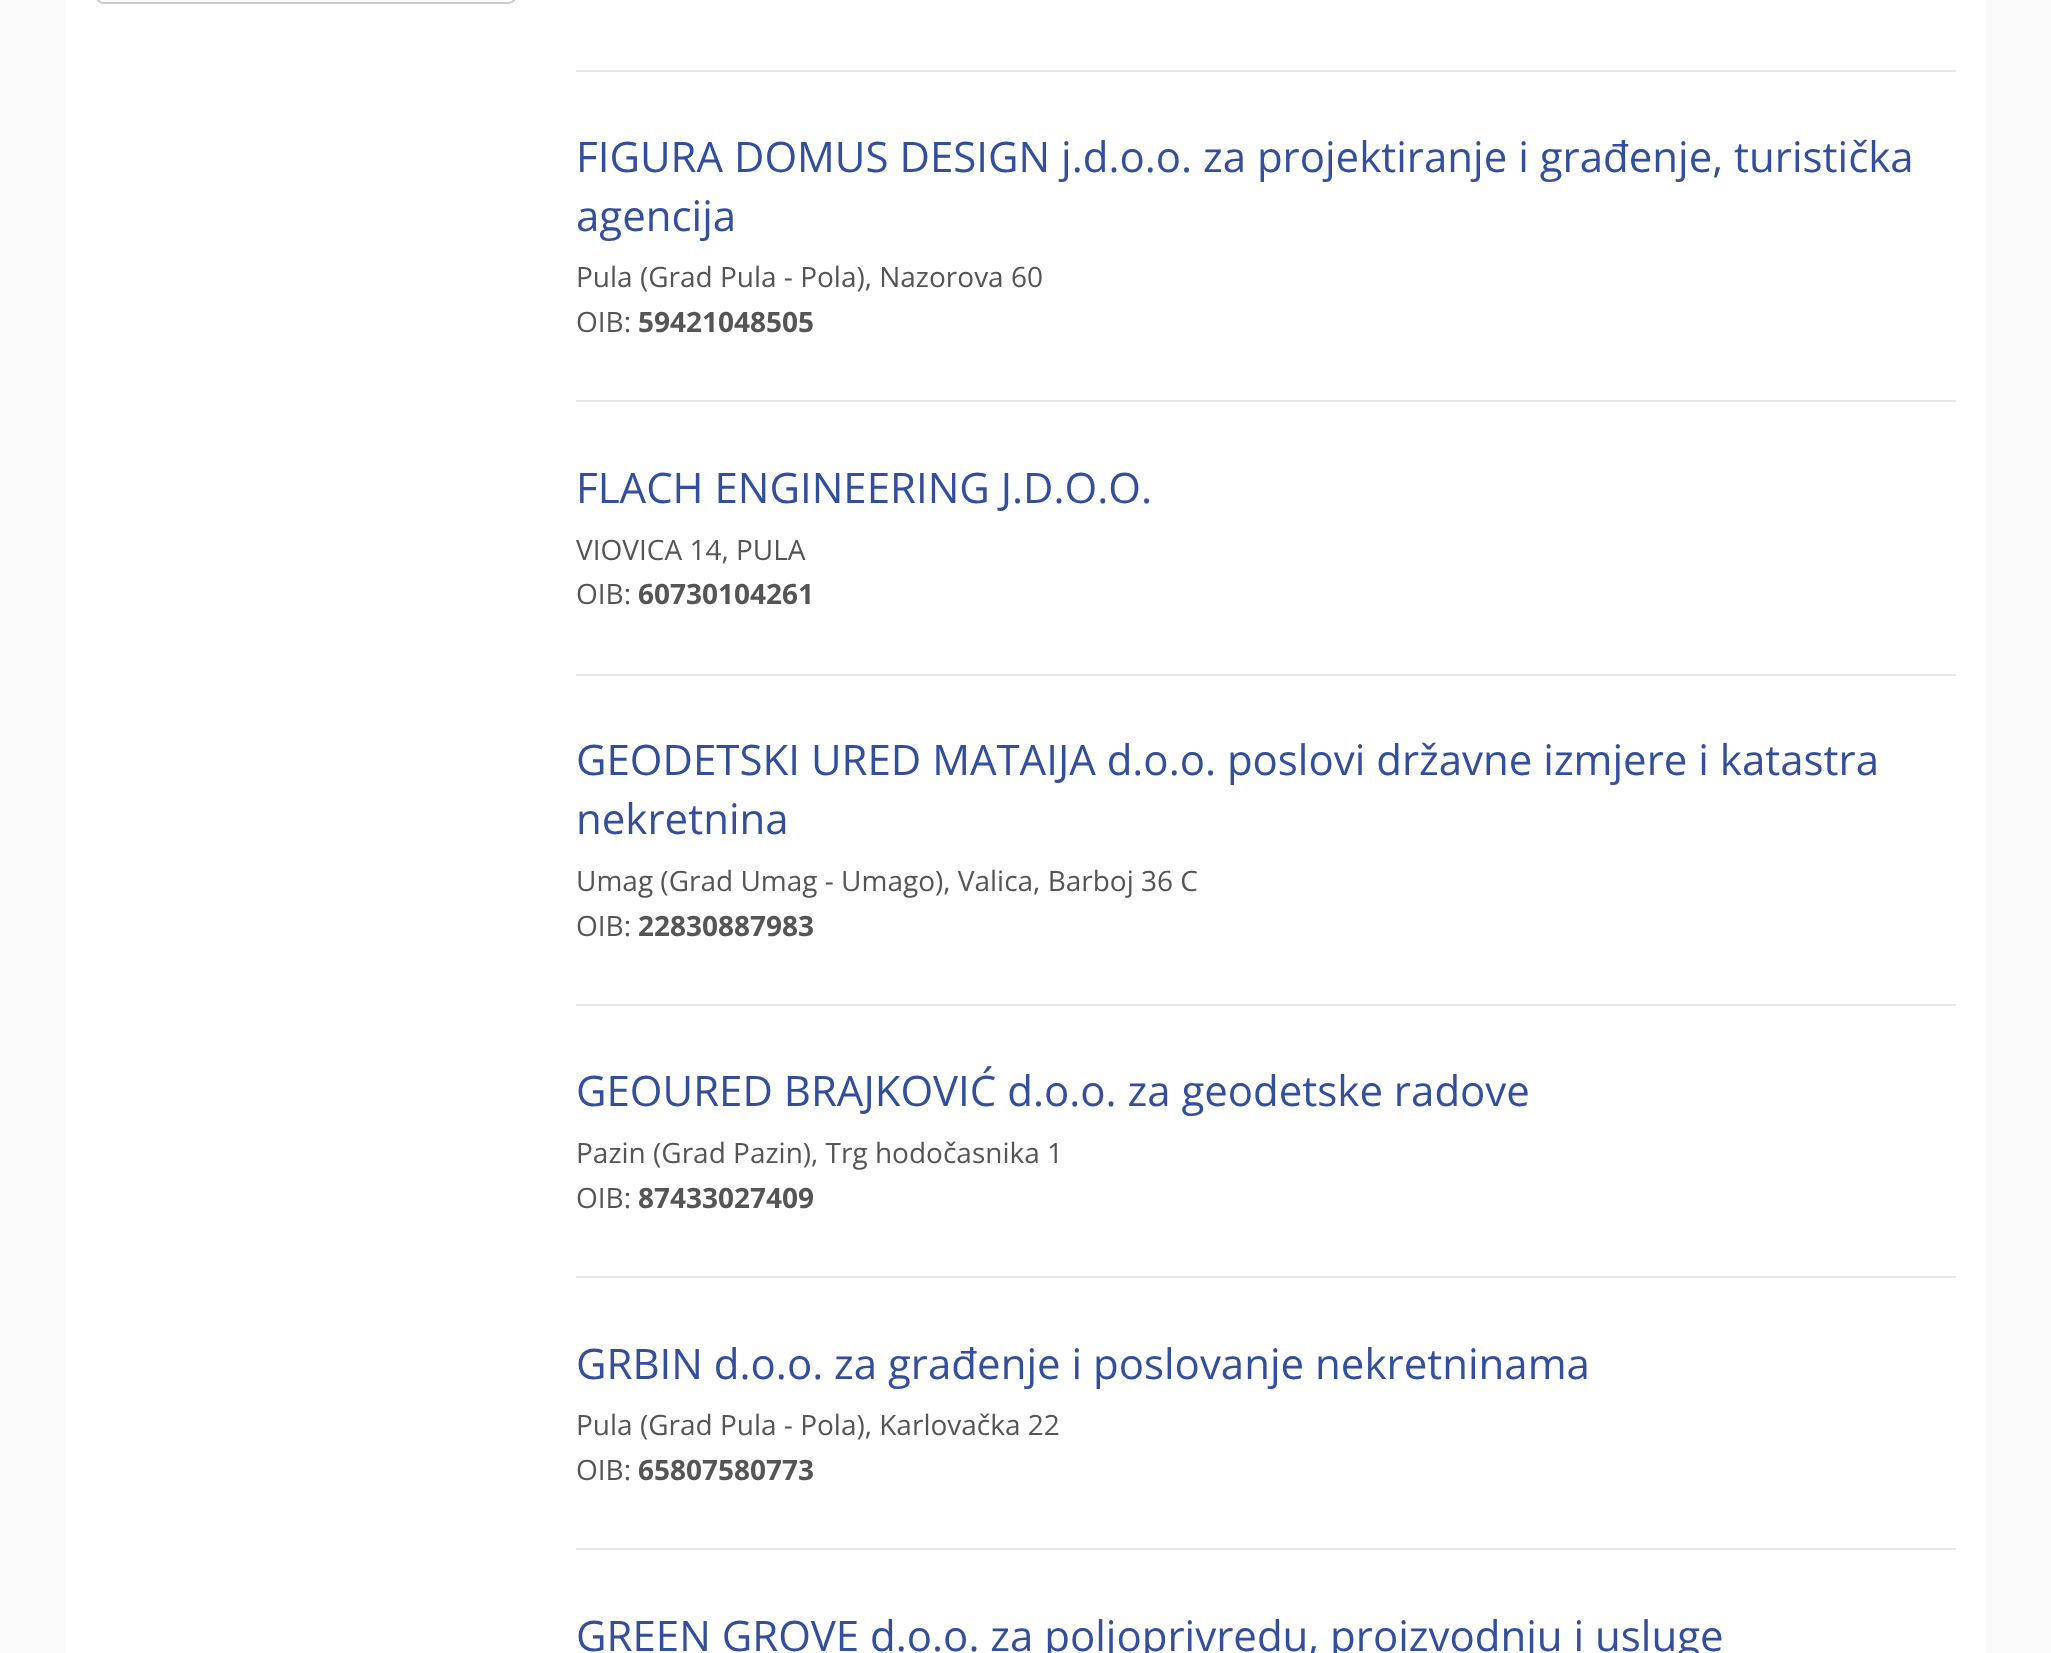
<?xml version="1.0" encoding="UTF-8"?>
<svg xmlns="http://www.w3.org/2000/svg" width="2051" height="1653">
    <rect width="100%" height="100%" fill="#FAFAFA"/>
    <rect x="66" y="0" width="1920" height="1653" fill="#FFFFFF"/>
    <rect x="97" y="-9" width="418" height="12" rx="7" fill="none" stroke="#CCCCCC" stroke-width="2"/>
    <rect x="576" y="70" width="1380" height="2" fill="#E6E6E6"/>
    <text font-family="Open Sans" font-size="42" fill="#334E9E">
        <tspan x="576" y="172">FIGURA DOMUS DESIGN j.d.o.o. za projektiranje i građenje, turistička</tspan>
        <tspan x="576" y="231">agencija</tspan>
    </text>
    <text font-family="Open Sans" font-size="28" fill="#555555">
        <tspan x="576" y="287">Pula (Grad Pula - Pola), Nazorova 60</tspan>
        <tspan x="576" y="332">OIB:</tspan>
    </text>
    <text x="638" y="332" font-family="Open Sans" font-size="28" font-weight="700" fill="#555555">59421048505</text>
    <rect x="576" y="400" width="1380" height="2" fill="#E6E6E6"/>
    <text x="576" y="503" font-family="Open Sans" font-size="42" fill="#334E9E">FLACH ENGINEERING J.D.O.O.</text>
    <text font-family="Open Sans" font-size="28" fill="#555555">
        <tspan x="576" y="560">VIOVICA 14, PULA</tspan>
        <tspan x="576" y="604">OIB:</tspan>
    </text>
    <text x="638" y="604" font-family="Open Sans" font-size="28" font-weight="700" fill="#555555">60730104261</text>
    <rect x="576" y="674" width="1380" height="2" fill="#E6E6E6"/>
    <text font-family="Open Sans" font-size="42" fill="#334E9E">
        <tspan x="576" y="775">GEODETSKI URED MATAIJA d.o.o. poslovi državne izmjere i katastra</tspan>
        <tspan x="576" y="834">nekretnina</tspan>
    </text>
    <text font-family="Open Sans" font-size="28" fill="#555555">
        <tspan x="576" y="891">Umag (Grad Umag - Umago), Valica, Barboj 36 C</tspan>
        <tspan x="576" y="936">OIB:</tspan>
    </text>
    <text x="638" y="936" font-family="Open Sans" font-size="28" font-weight="700" fill="#555555">22830887983</text>
    <rect x="576" y="1004" width="1380" height="2" fill="#E6E6E6"/>
    <text x="576" y="1106" font-family="Open Sans" font-size="42" fill="#334E9E">GEOURED BRAJKOVIĆ d.o.o. za geodetske radove</text>
    <text font-family="Open Sans" font-size="28" fill="#555555">
        <tspan x="576" y="1163">Pazin (Grad Pazin), Trg hodočasnika 1</tspan>
        <tspan x="576" y="1208">OIB:</tspan>
    </text>
    <text x="638" y="1208" font-family="Open Sans" font-size="28" font-weight="700" fill="#555555">87433027409</text>
    <rect x="576" y="1276" width="1380" height="2" fill="#E6E6E6"/>
    <text x="576" y="1379" font-family="Open Sans" font-size="42" fill="#334E9E">GRBIN d.o.o. za građenje i poslovanje nekretninama</text>
    <text font-family="Open Sans" font-size="28" fill="#555555">
        <tspan x="576" y="1435">Pula (Grad Pula - Pola), Karlovačka 22</tspan>
        <tspan x="576" y="1480">OIB:</tspan>
    </text>
    <text x="638" y="1480" font-family="Open Sans" font-size="28" font-weight="700" fill="#555555">65807580773</text>
    <rect x="576" y="1548" width="1380" height="2" fill="#E6E6E6"/>
    <text x="576" y="1651" font-family="Open Sans" font-size="42" fill="#334E9E">GREEN GROVE d.o.o. za poljoprivredu, proizvodnju i usluge</text>
</svg>
